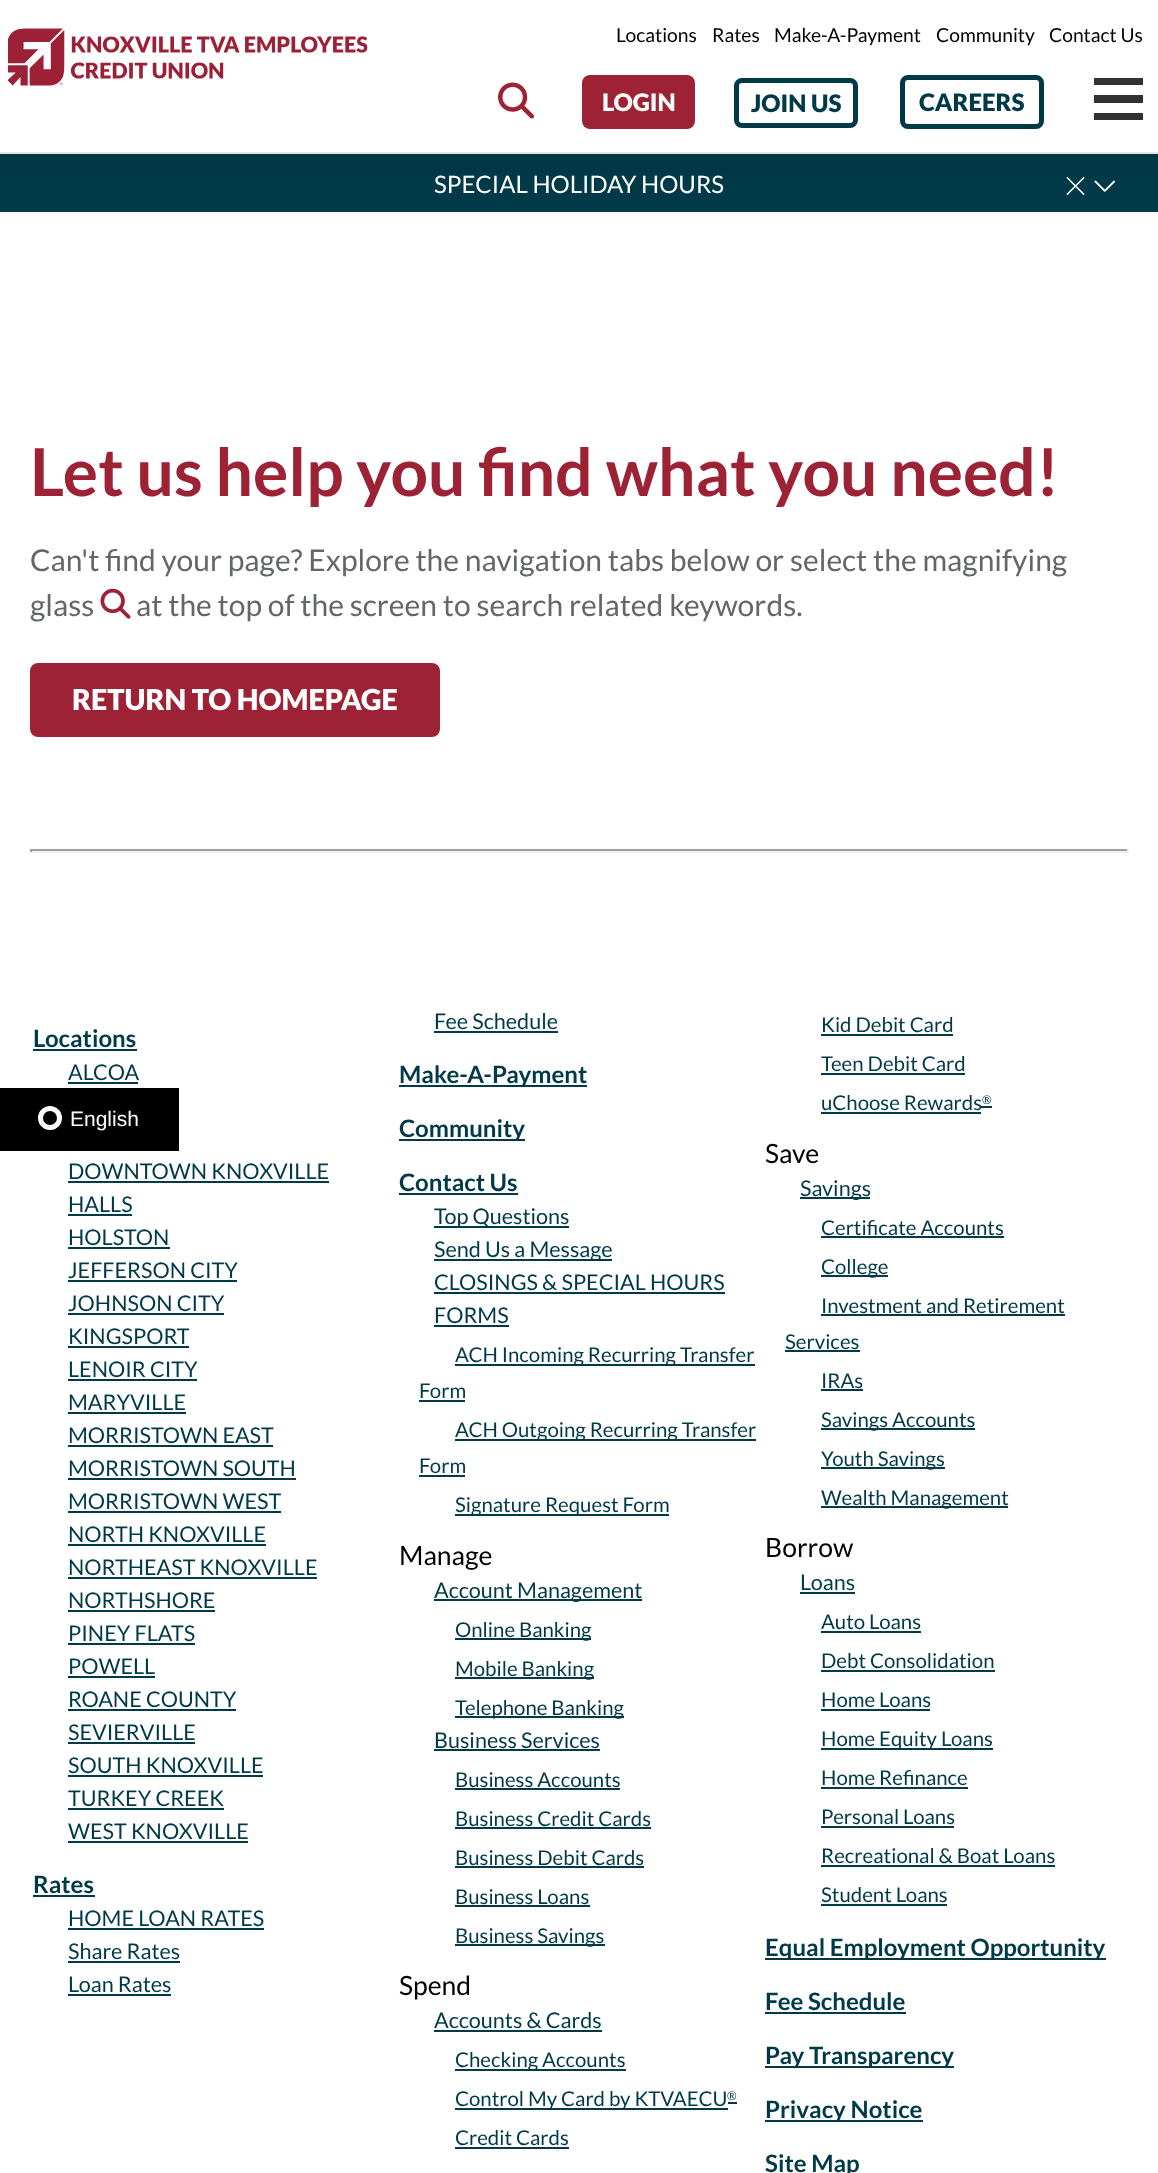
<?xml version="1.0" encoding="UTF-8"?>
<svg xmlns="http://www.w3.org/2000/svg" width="1158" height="2173">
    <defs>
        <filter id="blur1" x="-50%" y="-200%" width="200%" height="500%"><feGaussianBlur stdDeviation="7"/></filter>
    </defs>
    <rect width="100%" height="100%" fill="#FFFFFF"/>
    <rect x="0" y="154" width="1158" height="58" fill="#003A49"/>
    <rect x="0" y="152" width="1158" height="2" fill="#EFEFEF"/>
    <image x="1066" y="177" width="19" height="18" href="img_03.png"/>
    <image x="1094" y="180" width="21" height="12" href="img_04.png"/>
    <rect x="-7" y="6" width="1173" height="167" fill="#000000" fill-opacity="0.05" filter="url(#blur1)"/>
    <rect x="0" y="0" width="1158" height="152" fill="#FFFFFF"/>
    <image x="8" y="28" width="360" height="58" href="img_01.png"/>
    <text x="616" y="42" font-family="Lato" font-size="19.25" fill="#000000">Locations</text>
    <text x="712" y="42" font-family="Lato" font-size="19.25" fill="#000000">Rates</text>
    <text x="774" y="42" font-family="Lato" font-size="19.25" fill="#000000">Make-A-Payment</text>
    <text x="936" y="42" font-family="Lato" font-size="19.25" fill="#000000">Community</text>
    <text x="1049" y="42" font-family="Lato" font-size="19.25" fill="#000000">Contact Us</text>
    <image x="498" y="82" width="36" height="37" href="img_02.png"/>
    <rect x="584.5" y="77.5" width="108" height="49" rx="5.5" fill="#9D2235" stroke="#9D2235" stroke-width="5"/>
    <text x="602" y="111" font-family="Lato" font-size="24" font-weight="900" fill="#FFFFFF">LOGIN</text>
    <rect x="736.5" y="80.5" width="119" height="45" rx="5.5" fill="none" stroke="#003A49" stroke-width="5"/>
    <text x="751" y="112" font-family="Lato" font-size="24" font-weight="900" fill="#003A49">JOIN US</text>
    <rect x="902.5" y="77.5" width="139" height="49" rx="5.5" fill="none" stroke="#003A49" stroke-width="5"/>
    <text x="919" y="111" font-family="Lato" font-size="24" font-weight="900" fill="#003A49">CAREERS</text>
    <path d="M 1094 78 H 1143 V 85 H 1094 Z M 1094 95 H 1143 V 103 H 1094 Z M 1143 113 V 120 H 1094 V 113 Z" fill="#323232"/>
    <text x="434" y="193" font-family="Lato" font-size="24" fill="#FFFFFF">SPECIAL HOLIDAY HOURS</text>
    <text x="30" y="496" font-family="Lato" font-size="66" font-weight="700" fill="#9D2235">Let us help you find what you need!</text>
    <text font-family="Lato" font-size="30" fill="#63666A">
        <tspan x="30" y="571">Can't find your page? Explore the navigation tabs below or select the magnifying</tspan>
        <tspan x="30" y="616">glass</tspan>
    </text>
    <image x="100" y="588" width="31" height="31" href="img_05.png"/>
    <text x="136" y="616" font-family="Lato" font-size="30" fill="#63666A">at the top of the screen to search related keywords.</text>
    <rect x="32.5" y="665.5" width="405" height="69" rx="5.5" fill="#9D2235" stroke="#9D2235" stroke-width="5"/>
    <text x="72" y="710" font-family="Lato" font-size="28.75" font-weight="900" fill="#FFFFFF">RETURN TO HOMEPAGE</text>
    <rect x="30" y="849" width="1098" height="2" fill="#9F9F9F"/>
    <rect x="1127" y="849" width="2" height="3" fill="#EEEEEE"/>
    <rect x="30" y="851" width="1098" height="2" fill="#EEEEEE"/>
    <rect x="30" y="849" width="2" height="3" fill="#9F9F9F"/>
    <text x="33" y="1047" font-family="Lato" font-size="24" font-weight="700" fill="#003A49">Locations</text>
    <rect x="33" y="1049" width="104" height="2" fill="#003A49"/>
    <text x="68" y="1080" font-family="Lato" font-size="21.6" fill="#003A49">ALCOA</text>
    <rect x="68" y="1082" width="70" height="2" fill="#003A49"/>
    <text x="68" y="1179" font-family="Lato" font-size="21.6" fill="#003A49">DOWNTOWN KNOXVILLE</text>
    <rect x="68" y="1181" width="261" height="2" fill="#003A49"/>
    <text x="68" y="1212" font-family="Lato" font-size="21.6" fill="#003A49">HALLS</text>
    <rect x="68" y="1214" width="64" height="2" fill="#003A49"/>
    <text x="68" y="1245" font-family="Lato" font-size="21.6" fill="#003A49">HOLSTON</text>
    <rect x="68" y="1247" width="102" height="2" fill="#003A49"/>
    <text x="68" y="1278" font-family="Lato" font-size="21.6" fill="#003A49">JEFFERSON CITY</text>
    <rect x="68" y="1280" width="169" height="2" fill="#003A49"/>
    <text x="68" y="1311" font-family="Lato" font-size="21.6" fill="#003A49">JOHNSON CITY</text>
    <rect x="68" y="1313" width="156" height="2" fill="#003A49"/>
    <text x="68" y="1344" font-family="Lato" font-size="21.6" fill="#003A49">KINGSPORT</text>
    <rect x="68" y="1346" width="121" height="2" fill="#003A49"/>
    <text x="68" y="1377" font-family="Lato" font-size="21.6" fill="#003A49">LENOIR CITY</text>
    <rect x="68" y="1379" width="129" height="2" fill="#003A49"/>
    <text x="68" y="1410" font-family="Lato" font-size="21.6" fill="#003A49">MARYVILLE</text>
    <rect x="68" y="1412" width="118" height="2" fill="#003A49"/>
    <text x="68" y="1443" font-family="Lato" font-size="21.6" fill="#003A49">MORRISTOWN EAST</text>
    <rect x="68" y="1445" width="205" height="2" fill="#003A49"/>
    <text x="68" y="1476" font-family="Lato" font-size="21.6" fill="#003A49">MORRISTOWN SOUTH</text>
    <rect x="68" y="1478" width="228" height="2" fill="#003A49"/>
    <text x="68" y="1509" font-family="Lato" font-size="21.6" fill="#003A49">MORRISTOWN WEST</text>
    <rect x="68" y="1511" width="213" height="2" fill="#003A49"/>
    <text x="68" y="1542" font-family="Lato" font-size="21.6" fill="#003A49">NORTH KNOXVILLE</text>
    <rect x="68" y="1544" width="198" height="2" fill="#003A49"/>
    <text x="68" y="1575" font-family="Lato" font-size="21.6" fill="#003A49">NORTHEAST KNOXVILLE</text>
    <rect x="68" y="1577" width="249" height="2" fill="#003A49"/>
    <text x="68" y="1608" font-family="Lato" font-size="21.6" fill="#003A49">NORTHSHORE</text>
    <rect x="68" y="1610" width="147" height="2" fill="#003A49"/>
    <text x="68" y="1641" font-family="Lato" font-size="21.6" fill="#003A49">PINEY FLATS</text>
    <rect x="68" y="1643" width="127" height="2" fill="#003A49"/>
    <text x="68" y="1674" font-family="Lato" font-size="21.6" fill="#003A49">POWELL</text>
    <rect x="68" y="1676" width="87" height="2" fill="#003A49"/>
    <text x="68" y="1707" font-family="Lato" font-size="21.6" fill="#003A49">ROANE COUNTY</text>
    <rect x="68" y="1709" width="168" height="2" fill="#003A49"/>
    <text x="68" y="1740" font-family="Lato" font-size="21.6" fill="#003A49">SEVIERVILLE</text>
    <rect x="68" y="1742" width="127" height="2" fill="#003A49"/>
    <text x="68" y="1773" font-family="Lato" font-size="21.6" fill="#003A49">SOUTH KNOXVILLE</text>
    <rect x="68" y="1775" width="195" height="2" fill="#003A49"/>
    <text x="68" y="1806" font-family="Lato" font-size="21.6" fill="#003A49">TURKEY CREEK</text>
    <rect x="68" y="1808" width="156" height="2" fill="#003A49"/>
    <text x="68" y="1839" font-family="Lato" font-size="21.6" fill="#003A49">WEST KNOXVILLE</text>
    <rect x="68" y="1841" width="180" height="2" fill="#003A49"/>
    <text x="33" y="1893" font-family="Lato" font-size="24" font-weight="700" fill="#003A49">Rates</text>
    <rect x="33" y="1895" width="62" height="2" fill="#003A49"/>
    <text x="68" y="1926" font-family="Lato" font-size="21.6" fill="#003A49">HOME LOAN RATES</text>
    <rect x="68" y="1928" width="196" height="2" fill="#003A49"/>
    <text x="68" y="1959" font-family="Lato" font-size="21.6" fill="#003A49">Share Rates</text>
    <rect x="68" y="1961" width="112" height="2" fill="#003A49"/>
    <text x="68" y="1992" font-family="Lato" font-size="21.6" fill="#003A49">Loan Rates</text>
    <rect x="68" y="1994" width="103" height="2" fill="#003A49"/>
    <text x="434" y="1029" font-family="Lato" font-size="21.6" fill="#003A49">Fee Schedule</text>
    <rect x="434" y="1031" width="124" height="2" fill="#003A49"/>
    <rect x="399" y="1085" width="188" height="2" fill="#003A49"/>
    <text x="399" y="1083" font-family="Lato" font-size="24" font-weight="700" fill="#003A49">Make-A-Payment</text>
    <rect x="399" y="1139" width="126" height="2" fill="#003A49"/>
    <text x="399" y="1137" font-family="Lato" font-size="24" font-weight="700" fill="#003A49">Community</text>
    <text x="399" y="1191" font-family="Lato" font-size="24" font-weight="700" fill="#003A49">Contact Us</text>
    <rect x="399" y="1193" width="119" height="2" fill="#003A49"/>
    <rect x="434" y="1226" width="135" height="2" fill="#003A49"/>
    <text x="434" y="1224" font-family="Lato" font-size="21.6" fill="#003A49">Top Questions</text>
    <rect x="434" y="1259" width="178" height="2" fill="#003A49"/>
    <text font-family="Lato" font-size="21.6" fill="#003A49">
        <tspan x="434" y="1257">Send Us a Message</tspan>
        <tspan x="434" y="1290">CLOSINGS &amp; SPECIAL HOURS</tspan>
    </text>
    <rect x="434" y="1292" width="291" height="2" fill="#003A49"/>
    <text x="434" y="1323" font-family="Lato" font-size="21.6" fill="#003A49">FORMS</text>
    <rect x="434" y="1325" width="75" height="2" fill="#003A49"/>
    <rect x="455" y="1364" width="300" height="2" fill="#003A49"/>
    <text x="455" y="1362" font-family="Lato" font-size="20.4" fill="#003A49">ACH Incoming Recurring Transfer</text>
    <text x="419" y="1398" font-family="Lato" font-size="20.4" fill="#003A49">Form</text>
    <rect x="419" y="1400" width="46" height="2" fill="#003A49"/>
    <rect x="455" y="1439" width="301" height="2" fill="#003A49"/>
    <text x="455" y="1437" font-family="Lato" font-size="20.4" fill="#003A49">ACH Outgoing Recurring Transfer</text>
    <text x="419" y="1473" font-family="Lato" font-size="20.4" fill="#003A49">Form</text>
    <rect x="419" y="1475" width="46" height="2" fill="#003A49"/>
    <rect x="455" y="1514" width="214" height="2" fill="#003A49"/>
    <text x="455" y="1512" font-family="Lato" font-size="20.4" fill="#003A49">Signature Request Form</text>
    <text x="399" y="1565" font-family="Lato" font-size="26.5" fill="#000000">Manage</text>
    <rect x="434" y="1599" width="208" height="2" fill="#003A49"/>
    <text x="434" y="1598" font-family="Lato" font-size="21.6" fill="#003A49">Account Management</text>
    <rect x="455" y="1638" width="136" height="2" fill="#003A49"/>
    <text x="455" y="1637" font-family="Lato" font-size="20.4" fill="#003A49">Online Banking</text>
    <rect x="455" y="1677" width="139" height="2" fill="#003A49"/>
    <text x="455" y="1676" font-family="Lato" font-size="20.4" fill="#003A49">Mobile Banking</text>
    <rect x="455" y="1716" width="169" height="2" fill="#003A49"/>
    <text x="455" y="1715" font-family="Lato" font-size="20.4" fill="#003A49">Telephone Banking</text>
    <text x="434" y="1748" font-family="Lato" font-size="21.6" fill="#003A49">Business Services</text>
    <rect x="434" y="1749" width="166" height="2" fill="#003A49"/>
    <text x="455" y="1787" font-family="Lato" font-size="20.4" fill="#003A49">Business Accounts</text>
    <rect x="455" y="1788" width="165" height="2" fill="#003A49"/>
    <text x="455" y="1826" font-family="Lato" font-size="20.4" fill="#003A49">Business Credit Cards</text>
    <rect x="455" y="1827" width="196" height="2" fill="#003A49"/>
    <text x="455" y="1865" font-family="Lato" font-size="20.4" fill="#003A49">Business Debit Cards</text>
    <rect x="455" y="1866" width="189" height="2" fill="#003A49"/>
    <text x="455" y="1904" font-family="Lato" font-size="20.4" fill="#003A49">Business Loans</text>
    <rect x="455" y="1905" width="135" height="2" fill="#003A49"/>
    <rect x="455" y="1944" width="150" height="2" fill="#003A49"/>
    <text x="455" y="1943" font-family="Lato" font-size="20.4" fill="#003A49">Business Savings</text>
    <text x="399" y="1995" font-family="Lato" font-size="26.5" fill="#000000">Spend</text>
    <text x="434" y="2028" font-family="Lato" font-size="21.6" fill="#003A49">Accounts &amp; Cards</text>
    <rect x="434" y="2030" width="168" height="2" fill="#003A49"/>
    <rect x="455" y="2069" width="171" height="2" fill="#003A49"/>
    <text x="455" y="2067" font-family="Lato" font-size="20.4" fill="#003A49">Checking Accounts</text>
    <rect x="455" y="2108" width="273" height="2" fill="#003A49"/>
    <text x="455" y="2106" font-family="Lato" font-size="20.4" fill="#003A49">Control My Card by KTVAECU</text>
    <rect x="728" y="2102" width="9" height="2" fill="#003A49"/>
    <text x="727" y="2100" font-family="Lato" font-size="12" fill="#003A49">®</text>
    <text x="455" y="2145" font-family="Lato" font-size="20.4" fill="#003A49">Credit Cards</text>
    <rect x="455" y="2147" width="114" height="2" fill="#003A49"/>
    <text x="821" y="1032" font-family="Lato" font-size="20.4" fill="#003A49">Kid Debit Card</text>
    <rect x="821" y="1034" width="132" height="2" fill="#003A49"/>
    <text x="821" y="1071" font-family="Lato" font-size="20.4" fill="#003A49">Teen Debit Card</text>
    <rect x="821" y="1073" width="144" height="2" fill="#003A49"/>
    <text x="821" y="1110" font-family="Lato" font-size="20.4" fill="#003A49">uChoose Rewards</text>
    <rect x="821" y="1112" width="160" height="2" fill="#003A49"/>
    <rect x="981" y="1106" width="11" height="2" fill="#003A49"/>
    <text x="982" y="1104" font-family="Lato" font-size="12" fill="#003A49">®</text>
    <text x="765" y="1163" font-family="Lato" font-size="26.5" fill="#000000">Save</text>
    <rect x="800" y="1197" width="70" height="2" fill="#003A49"/>
    <text x="800" y="1196" font-family="Lato" font-size="21.6" fill="#003A49">Savings</text>
    <text x="821" y="1235" font-family="Lato" font-size="20.4" fill="#003A49">Certificate Accounts</text>
    <rect x="821" y="1236" width="183" height="2" fill="#003A49"/>
    <rect x="821" y="1275" width="67" height="2" fill="#003A49"/>
    <text font-family="Lato" font-size="20.4" fill="#003A49">
        <tspan x="821" y="1274">College</tspan>
        <tspan x="821" y="1313">Investment and Retirement</tspan>
    </text>
    <rect x="821" y="1314" width="244" height="2" fill="#003A49"/>
    <text x="785" y="1349" font-family="Lato" font-size="20.4" fill="#003A49">Services</text>
    <rect x="785" y="1350" width="75" height="2" fill="#003A49"/>
    <text x="821" y="1388" font-family="Lato" font-size="20.4" fill="#003A49">IRAs</text>
    <rect x="821" y="1389" width="42" height="2" fill="#003A49"/>
    <rect x="821" y="1428" width="154" height="2" fill="#003A49"/>
    <text x="821" y="1427" font-family="Lato" font-size="20.4" fill="#003A49">Savings Accounts</text>
    <rect x="821" y="1467" width="124" height="2" fill="#003A49"/>
    <text x="821" y="1466" font-family="Lato" font-size="20.4" fill="#003A49">Youth Savings</text>
    <rect x="821" y="1506" width="187" height="2" fill="#003A49"/>
    <text x="821" y="1505" font-family="Lato" font-size="20.4" fill="#003A49">Wealth Management</text>
    <text x="765" y="1557" font-family="Lato" font-size="26.5" fill="#000000">Borrow</text>
    <text x="800" y="1590" font-family="Lato" font-size="21.6" fill="#003A49">Loans</text>
    <rect x="800" y="1592" width="55" height="2" fill="#003A49"/>
    <text x="821" y="1629" font-family="Lato" font-size="20.4" fill="#003A49">Auto Loans</text>
    <rect x="821" y="1631" width="100" height="2" fill="#003A49"/>
    <text x="821" y="1668" font-family="Lato" font-size="20.4" fill="#003A49">Debt Consolidation</text>
    <rect x="821" y="1670" width="174" height="2" fill="#003A49"/>
    <text x="821" y="1707" font-family="Lato" font-size="20.4" fill="#003A49">Home Loans</text>
    <rect x="821" y="1709" width="109" height="2" fill="#003A49"/>
    <rect x="821" y="1748" width="172" height="2" fill="#003A49"/>
    <text font-family="Lato" font-size="20.4" fill="#003A49">
        <tspan x="821" y="1746">Home Equity Loans</tspan>
        <tspan x="821" y="1785">Home Refinance</tspan>
    </text>
    <rect x="821" y="1787" width="147" height="2" fill="#003A49"/>
    <text x="821" y="1824" font-family="Lato" font-size="20.4" fill="#003A49">Personal Loans</text>
    <rect x="821" y="1826" width="133" height="2" fill="#003A49"/>
    <text x="821" y="1863" font-family="Lato" font-size="20.4" fill="#003A49">Recreational &amp; Boat Loans</text>
    <rect x="821" y="1865" width="234" height="2" fill="#003A49"/>
    <text x="821" y="1902" font-family="Lato" font-size="20.4" fill="#003A49">Student Loans</text>
    <rect x="821" y="1904" width="126" height="2" fill="#003A49"/>
    <rect x="765" y="1958" width="341" height="2" fill="#003A49"/>
    <text x="765" y="1956" font-family="Lato" font-size="24" font-weight="700" fill="#003A49">Equal Employment Opportunity</text>
    <text x="765" y="2010" font-family="Lato" font-size="24" font-weight="700" fill="#003A49">Fee Schedule</text>
    <rect x="765" y="2012" width="141" height="2" fill="#003A49"/>
    <rect x="765" y="2066" width="189" height="2" fill="#003A49"/>
    <text x="765" y="2064" font-family="Lato" font-size="24" font-weight="700" fill="#003A49">Pay Transparency</text>
    <rect x="765" y="2120" width="158" height="2" fill="#003A49"/>
    <text x="765" y="2118" font-family="Lato" font-size="24" font-weight="700" fill="#003A49">Privacy Notice</text>
    <text x="765" y="2172" font-family="Lato" font-size="24" font-weight="700" fill="#003A49">Site Map</text>
    <rect x="0" y="1088" width="179" height="63" fill="#000000"/>
    <circle cx="50" cy="1118" r="9.5" fill="none" stroke="#FFFFFF" stroke-width="5"/>
    <text x="70" y="1126" font-family="Liberation Sans" font-size="21" fill="#FFFFFF">English</text>
</svg>
